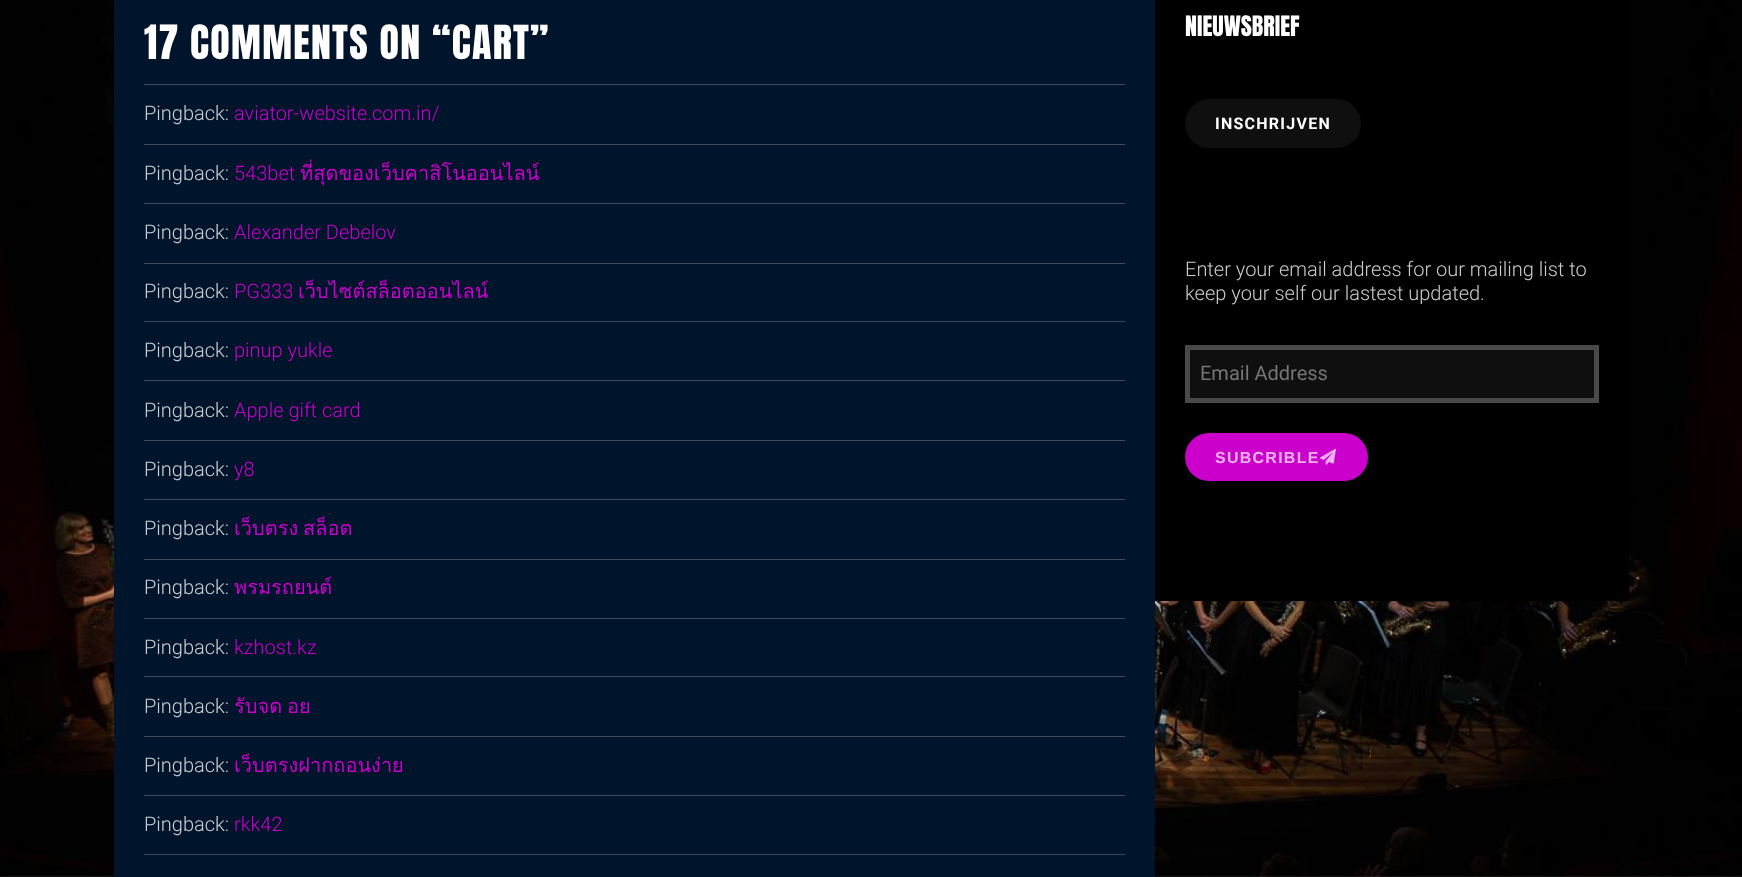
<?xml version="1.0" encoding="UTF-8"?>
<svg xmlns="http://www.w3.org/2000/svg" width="1742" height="877">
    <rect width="100%" height="100%" fill="#FFFFFF"/>
    <image x="0" y="0" width="1742" height="877" href="img_01.png"/>
    <rect x="114" y="0" width="1041" height="877" fill="#00142B"/>
    <text x="144" y="59" font-family="Anton" font-size="40" letter-spacing="1.25" fill="#FFFFFF">17 COMMENTS ON “CART”</text>
    <rect x="144" y="84" width="981" height="1" fill="#3D4C5E"/>
    <text x="144" y="120" font-family="Roboto" font-size="20" font-weight="300" fill="#CCD0D5">Pingback:</text>
    <text x="234" y="120" font-family="Roboto" font-size="20" font-weight="300" fill="#CC00CC">aviator-website.com.in/</text>
    <rect x="144" y="144" width="981" height="1" fill="#3D4C5E"/>
    <text x="144" y="180" font-family="Roboto" font-size="20" font-weight="300" fill="#CCD0D5">Pingback:</text>
    <text x="234" y="180" font-family="Roboto" font-size="20" font-weight="300" fill="#CC00CC">543bet</text>
    <text x="300" y="180" font-family="Loma" font-size="20" fill="#CC00CC">ที่สุดของเว็บคาสิโนออนไลน์</text>
    <rect x="144" y="203" width="981" height="1" fill="#3D4C5E"/>
    <text x="144" y="239" font-family="Roboto" font-size="20" font-weight="300" fill="#CCD0D5">Pingback:</text>
    <text x="234" y="239" font-family="Roboto" font-size="20" font-weight="300" fill="#CC00CC">Alexander Debelov</text>
    <rect x="144" y="263" width="981" height="1" fill="#3D4C5E"/>
    <text x="144" y="298" font-family="Roboto" font-size="20" font-weight="300" fill="#CCD0D5">Pingback:</text>
    <text x="234" y="298" font-family="Roboto" font-size="20" font-weight="300" fill="#CC00CC">PG333</text>
    <text x="298" y="298" font-family="Loma" font-size="20" fill="#CC00CC">เว็บไซต์สล็อตออนไลน์</text>
    <rect x="144" y="321" width="981" height="1" fill="#3D4C5E"/>
    <text x="144" y="357" font-family="Roboto" font-size="20" font-weight="300" fill="#CCD0D5">Pingback:</text>
    <text x="234" y="357" font-family="Roboto" font-size="20" font-weight="300" fill="#CC00CC">pinup yukle</text>
    <rect x="144" y="380" width="981" height="1" fill="#3D4C5E"/>
    <text x="144" y="417" font-family="Roboto" font-size="20" font-weight="300" fill="#CCD0D5">Pingback:</text>
    <text x="234" y="417" font-family="Roboto" font-size="20" font-weight="300" fill="#CC00CC">Apple gift card</text>
    <rect x="144" y="440" width="981" height="1" fill="#3D4C5E"/>
    <text x="144" y="476" font-family="Roboto" font-size="20" font-weight="300" fill="#CCD0D5">Pingback:</text>
    <text x="234" y="476" font-family="Roboto" font-size="20" font-weight="300" fill="#CC00CC">y8</text>
    <rect x="144" y="499" width="981" height="1" fill="#3D4C5E"/>
    <text x="144" y="535" font-family="Roboto" font-size="20" font-weight="300" fill="#CCD0D5">Pingback:</text>
    <text x="234" y="535" word-spacing="-2" font-family="Loma" font-size="20" fill="#CC00CC">เว็บตรง สล็อต</text>
    <rect x="144" y="559" width="981" height="1" fill="#3D4C5E"/>
    <text x="144" y="594" font-family="Roboto" font-size="20" font-weight="300" fill="#CCD0D5">Pingback:</text>
    <text x="234" y="594" font-family="Loma" font-size="20" fill="#CC00CC">พรมรถยนต์</text>
    <rect x="144" y="618" width="981" height="1" fill="#3D4C5E"/>
    <text x="144" y="654" font-family="Roboto" font-size="20" font-weight="300" fill="#CCD0D5">Pingback:</text>
    <text x="234" y="654" font-family="Roboto" font-size="20" font-weight="300" fill="#CC00CC">kzhost.kz</text>
    <rect x="144" y="676" width="981" height="1" fill="#3D4C5E"/>
    <text x="144" y="713" font-family="Roboto" font-size="20" font-weight="300" fill="#CCD0D5">Pingback:</text>
    <text x="234" y="713" word-spacing="-2" font-family="Loma" font-size="20" fill="#CC00CC">รับจด อย</text>
    <rect x="144" y="736" width="981" height="1" fill="#3D4C5E"/>
    <text x="144" y="772" font-family="Roboto" font-size="20" font-weight="300" fill="#CCD0D5">Pingback:</text>
    <text x="234" y="772" font-family="Loma" font-size="20" fill="#CC00CC">เว็บตรงฝากถอนง่าย</text>
    <rect x="144" y="795" width="981" height="1" fill="#3D4C5E"/>
    <text x="144" y="831" font-family="Roboto" font-size="20" font-weight="300" fill="#CCD0D5">Pingback:</text>
    <text x="234" y="831" font-family="Roboto" font-size="20" font-weight="300" fill="#CC00CC">rkk42</text>
    <rect x="144" y="854" width="981" height="1" fill="#3D4C5E"/>
    <rect x="1155" y="0" width="474" height="601" fill="#000000"/>
    <text x="1185" y="36" font-family="Anton" font-size="24" fill="#FFFFFF">NIEUWSBRIEF</text>
    <rect x="1185" y="99" width="176" height="49" rx="24.5" fill="#0F0F0F"/>
    <text x="1215" y="129" font-family="Roboto" font-size="16" font-weight="700" letter-spacing="1.25" fill="#FFFFFF">INSCHRIJVEN</text>
    <text font-family="Roboto" font-size="20" font-weight="300" fill="#CCCCCC">
        <tspan x="1185" y="276">Enter your email address for our mailing list to</tspan>
        <tspan x="1185" y="300">keep your self our lastest updated.</tspan>
    </text>
    <rect x="1187.5" y="347.5" width="409" height="53" fill="#0F0F0F" stroke="#494949" stroke-width="5"/>
    <text x="1200" y="380" font-family="Roboto" font-size="20" fill="#757575">Email Address</text>
    <rect x="1185" y="433" width="183" height="48" rx="24" fill="#CC00CC"/>
    <text x="1215" y="463" font-family="Liberation Sans" font-size="16" font-weight="700" letter-spacing="1.25" fill="#F0B3F0">SUBCRIBLE</text>
    <image x="1320" y="448" width="16" height="17" href="img_02.png"/>
</svg>
